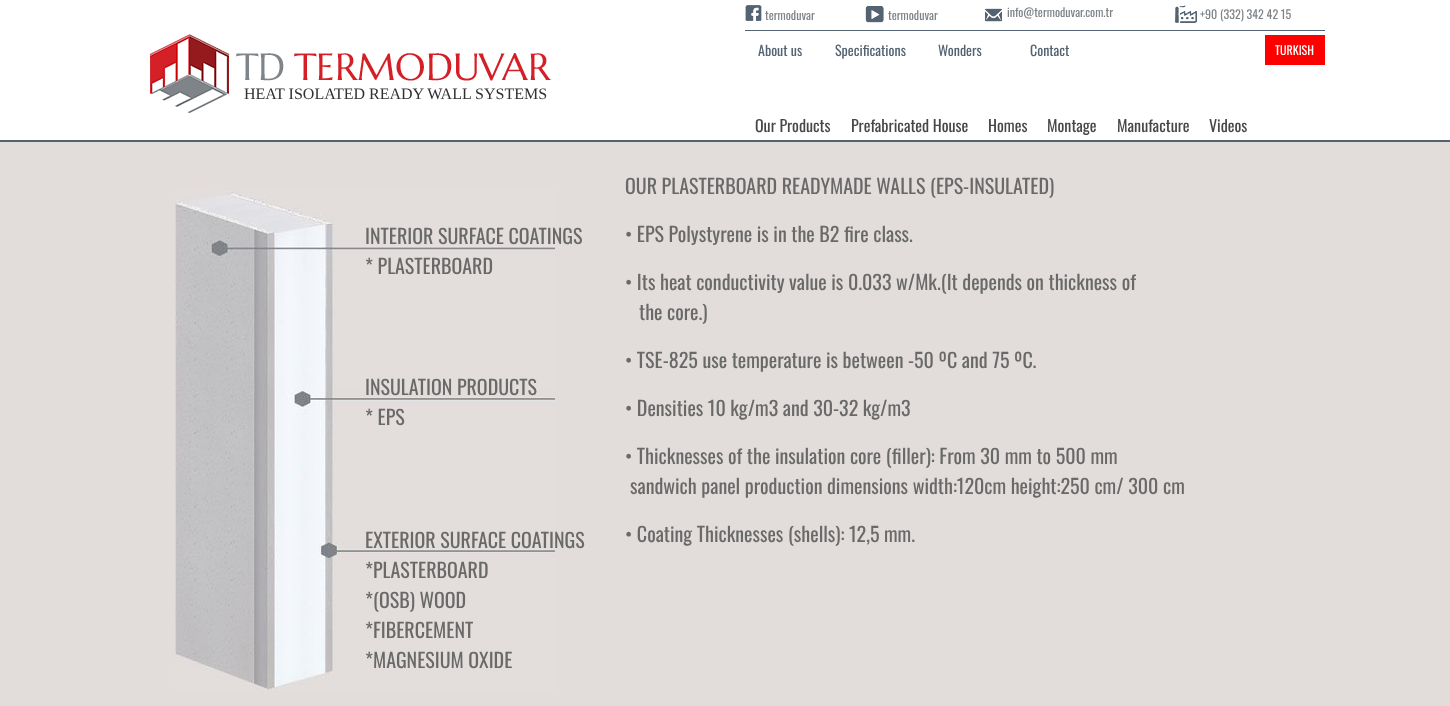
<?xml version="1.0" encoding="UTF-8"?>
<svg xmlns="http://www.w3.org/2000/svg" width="1450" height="706">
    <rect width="100%" height="100%" fill="#FFFFFF"/>
    <image x="745" y="5" width="17" height="16" href="img_01.png"/>
    <text x="765" y="20" font-family="Oswald" font-size="12" fill="#7F8488">termoduvar</text>
    <image x="865" y="6" width="19" height="17" href="img_02.png"/>
    <text x="888" y="20" font-family="Oswald" font-size="12" fill="#7F8488">termoduvar</text>
    <image x="985" y="8" width="17" height="14" href="img_03.png"/>
    <text x="1007" y="17" font-family="Oswald" font-size="12" fill="#7F8488">info@termoduvar.com.tr</text>
    <image x="1175" y="5" width="22" height="18" href="img_04.png"/>
    <text x="1200" y="19" font-family="Oswald" font-size="12" fill="#7F8488">+90 (332) 342 42 15</text>
    <rect x="745" y="30" width="580" height="1" fill="#536372"/>
    <text x="244" y="99" font-family="Liberation Serif" font-size="16" fill="#303030">HEAT ISOLATED READY WALL SYSTEMS</text>
    <image x="150" y="34" width="402" height="79" href="img_05.png"/>
    <text x="758" y="56" font-family="Oswald" font-size="14" fill="#536372">About us</text>
    <text x="835" y="56" font-family="Oswald" font-size="14" fill="#536372">Specifications</text>
    <text x="938" y="56" font-family="Oswald" font-size="14" fill="#536372">Wonders</text>
    <text x="1030" y="56" font-family="Oswald" font-size="14" fill="#536372">Contact</text>
    <rect x="1265" y="35" width="60" height="30" fill="#FF0000"/>
    <text x="1275" y="55" font-family="Oswald" font-size="12" fill="#FFFFFF">TURKISH</text>
    <text x="755" y="132" font-family="Oswald" font-size="16" fill="#474747">Our Products</text>
    <text x="851" y="132" font-family="Oswald" font-size="16" fill="#474747">Prefabricated House</text>
    <text x="988" y="132" font-family="Oswald" font-size="16" fill="#474747">Homes</text>
    <text x="1047" y="132" font-family="Oswald" font-size="16" fill="#474747">Montage</text>
    <text x="1117" y="132" font-family="Oswald" font-size="16" fill="#474747">Manufacture</text>
    <text x="1209" y="132" font-family="Oswald" font-size="16" fill="#474747">Videos</text>
    <rect x="0" y="140" width="1450" height="2" fill="#536372"/>
    <rect x="0" y="142" width="1450" height="564" fill="#E2DDDB"/>
    <image x="175" y="190" width="380" height="500" href="img_06.png"/>
    <text x="625" y="194" font-family="Oswald" font-size="20" fill="#696969">OUR PLASTERBOARD READYMADE WALLS (EPS-INSULATED)</text>
    <text x="625" y="242" font-family="Oswald" font-size="20" fill="#696969">• EPS Polystyrene is in the B2 fire class.</text>
    <text x="625" y="290" font-family="Oswald" font-size="20" fill="#696969">• Its heat conductivity value is 0.033 w/Mk.(It depends on thickness of</text>
    <text x="639" y="320" font-family="Oswald" font-size="20" fill="#696969">the core.)</text>
    <text x="625" y="368" font-family="Oswald" font-size="20" fill="#696969">• TSE-825 use temperature is between -50 ºC and 75 ºC.</text>
    <text x="625" y="416" font-family="Oswald" font-size="20" fill="#696969">• Densities 10 kg/m3 and 30-32 kg/m3</text>
    <text x="625" y="464" font-family="Oswald" font-size="20" fill="#696969">• Thicknesses of the insulation core (filler): From 30 mm to 500 mm</text>
    <text x="630" y="494" font-family="Oswald" font-size="20" fill="#696969">sandwich panel production dimensions width:120cm height:250 cm/ 300 cm</text>
    <text x="625" y="542" font-family="Oswald" font-size="20" fill="#696969">• Coating Thicknesses (shells): 12,5 mm.</text>
    <text font-family="Oswald" font-size="20" fill="#696969">
        <tspan x="365" y="244">INTERIOR SURFACE COATINGS</tspan>
        <tspan x="365" y="274">* PLASTERBOARD</tspan>
    </text>
    <text font-family="Oswald" font-size="20" fill="#696969">
        <tspan x="365" y="395">INSULATION PRODUCTS</tspan>
        <tspan x="365" y="425">* EPS</tspan>
    </text>
    <text font-family="Oswald" font-size="20" fill="#696969">
        <tspan x="365" y="548">EXTERIOR SURFACE COATINGS</tspan>
        <tspan x="365" y="578">*PLASTERBOARD</tspan>
        <tspan x="365" y="608">*(OSB) WOOD</tspan>
        <tspan x="365" y="638">*FIBERCEMENT</tspan>
        <tspan x="365" y="668">*MAGNESIUM OXIDE</tspan>
    </text>
</svg>
